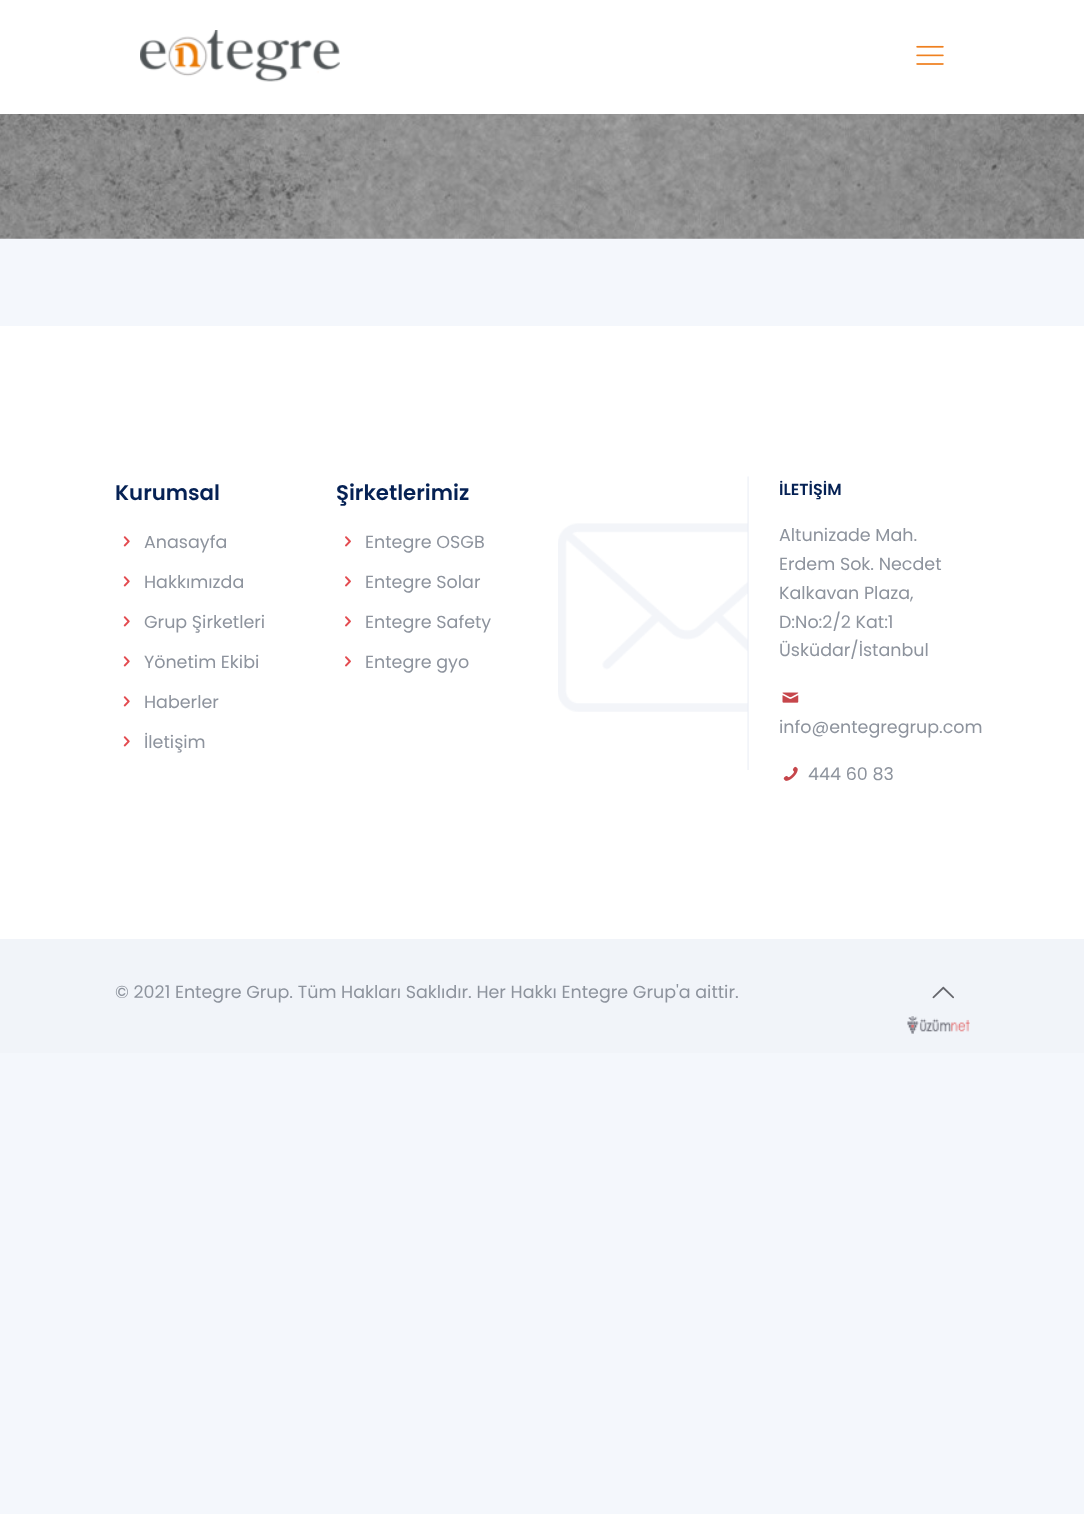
<?xml version="1.0" encoding="UTF-8"?>
<svg xmlns="http://www.w3.org/2000/svg" width="1084" height="1514">
    <rect width="100%" height="100%" fill="#F4F7FC"/>
    <image x="0" y="114" width="1084" height="125" href="img_01.png"/>
    <rect x="0" y="0" width="1084" height="114" fill="#FFFFFF"/>
    <image x="140" y="30" width="200" height="52" href="img_02.png"/>
    <image x="916" y="45" width="28" height="20" href="img_03.png"/>
    <rect x="0" y="326" width="1084" height="613" fill="#FFFFFF"/>
    <text x="115" y="500" font-family="Poppins" font-size="21.25" font-weight="600" fill="#052154">Kurumsal</text>
    <image x="123" y="536" width="7" height="11" href="img_04.png"/>
    <text x="144" y="548" font-family="Poppins" font-size="17.5" fill="#8D939D">Anasayfa</text>
    <image x="123" y="576" width="7" height="11" href="img_04.png"/>
    <text x="144" y="588" font-family="Poppins" font-size="17.5" fill="#8D939D">Hakkımızda</text>
    <image x="123" y="616" width="7" height="11" href="img_04.png"/>
    <text x="144" y="628" font-family="Poppins" font-size="17.5" fill="#8D939D">Grup Şirketleri</text>
    <image x="123" y="656" width="7" height="11" href="img_04.png"/>
    <text x="144" y="668" font-family="Poppins" font-size="17.5" fill="#8D939D">Yönetim Ekibi</text>
    <image x="123" y="696" width="7" height="11" href="img_04.png"/>
    <text x="144" y="708" font-family="Poppins" font-size="17.5" fill="#8D939D">Haberler</text>
    <image x="123" y="736" width="7" height="11" href="img_04.png"/>
    <text x="144" y="748" font-family="Poppins" font-size="17.5" fill="#8D939D">İletişim</text>
    <text x="336" y="500" font-family="Poppins" font-size="21.25" font-weight="600" fill="#052154">Şirketlerimiz</text>
    <image x="345" y="536" width="6" height="11" href="img_05.png"/>
    <text x="365" y="548" font-family="Poppins" font-size="17.5" fill="#8D939D">Entegre OSGB</text>
    <image x="345" y="576" width="6" height="11" href="img_05.png"/>
    <text x="365" y="588" font-family="Poppins" font-size="17.5" fill="#8D939D">Entegre Solar</text>
    <image x="345" y="616" width="6" height="11" href="img_05.png"/>
    <text x="365" y="628" font-family="Poppins" font-size="17.5" fill="#8D939D">Entegre Safety</text>
    <image x="345" y="656" width="6" height="11" href="img_05.png"/>
    <text x="365" y="668" font-family="Poppins" font-size="17.5" fill="#8D939D">Entegre gyo</text>
    <image x="558" y="476" width="191" height="294" href="img_06.png"/>
    <text x="779" y="495" font-family="Poppins" font-size="16" font-weight="600" fill="#052154">İLETİŞİM</text>
    <text font-family="Poppins" font-size="17.5" fill="#8D939D">
        <tspan x="779" y="541">Altunizade Mah.</tspan>
        <tspan x="779" y="570">Erdem Sok. Necdet</tspan>
        <tspan x="779" y="599">Kalkavan Plaza,</tspan>
        <tspan x="779" y="628">D:No:2/2 Kat:1</tspan>
        <tspan x="779" y="656">Üsküdar/İstanbul</tspan>
    </text>
    <image x="782" y="692" width="17" height="11" href="img_07.png"/>
    <text x="779" y="733" font-family="Poppins" font-size="17.5" fill="#8D939D">info@entegregrup.com</text>
    <image x="783" y="766" width="15" height="15" href="img_08.png"/>
    <text x="808" y="780" font-family="Poppins" font-size="17.5" fill="#8D939D">444 60 83</text>
    <rect x="0" y="939" width="1084" height="114" fill="#F1F4F9"/>
    <text x="115" y="998" font-family="Poppins" font-size="17.5" fill="#8D939D">© 2021 Entegre Grup. Tüm Hakları Saklıdır. Her Hakkı Entegre Grup'a aittir.</text>
    <image x="907" y="1016" width="63" height="18" href="img_09.png"/>
    <image x="932" y="986" width="22" height="13" href="img_10.png"/>
</svg>
